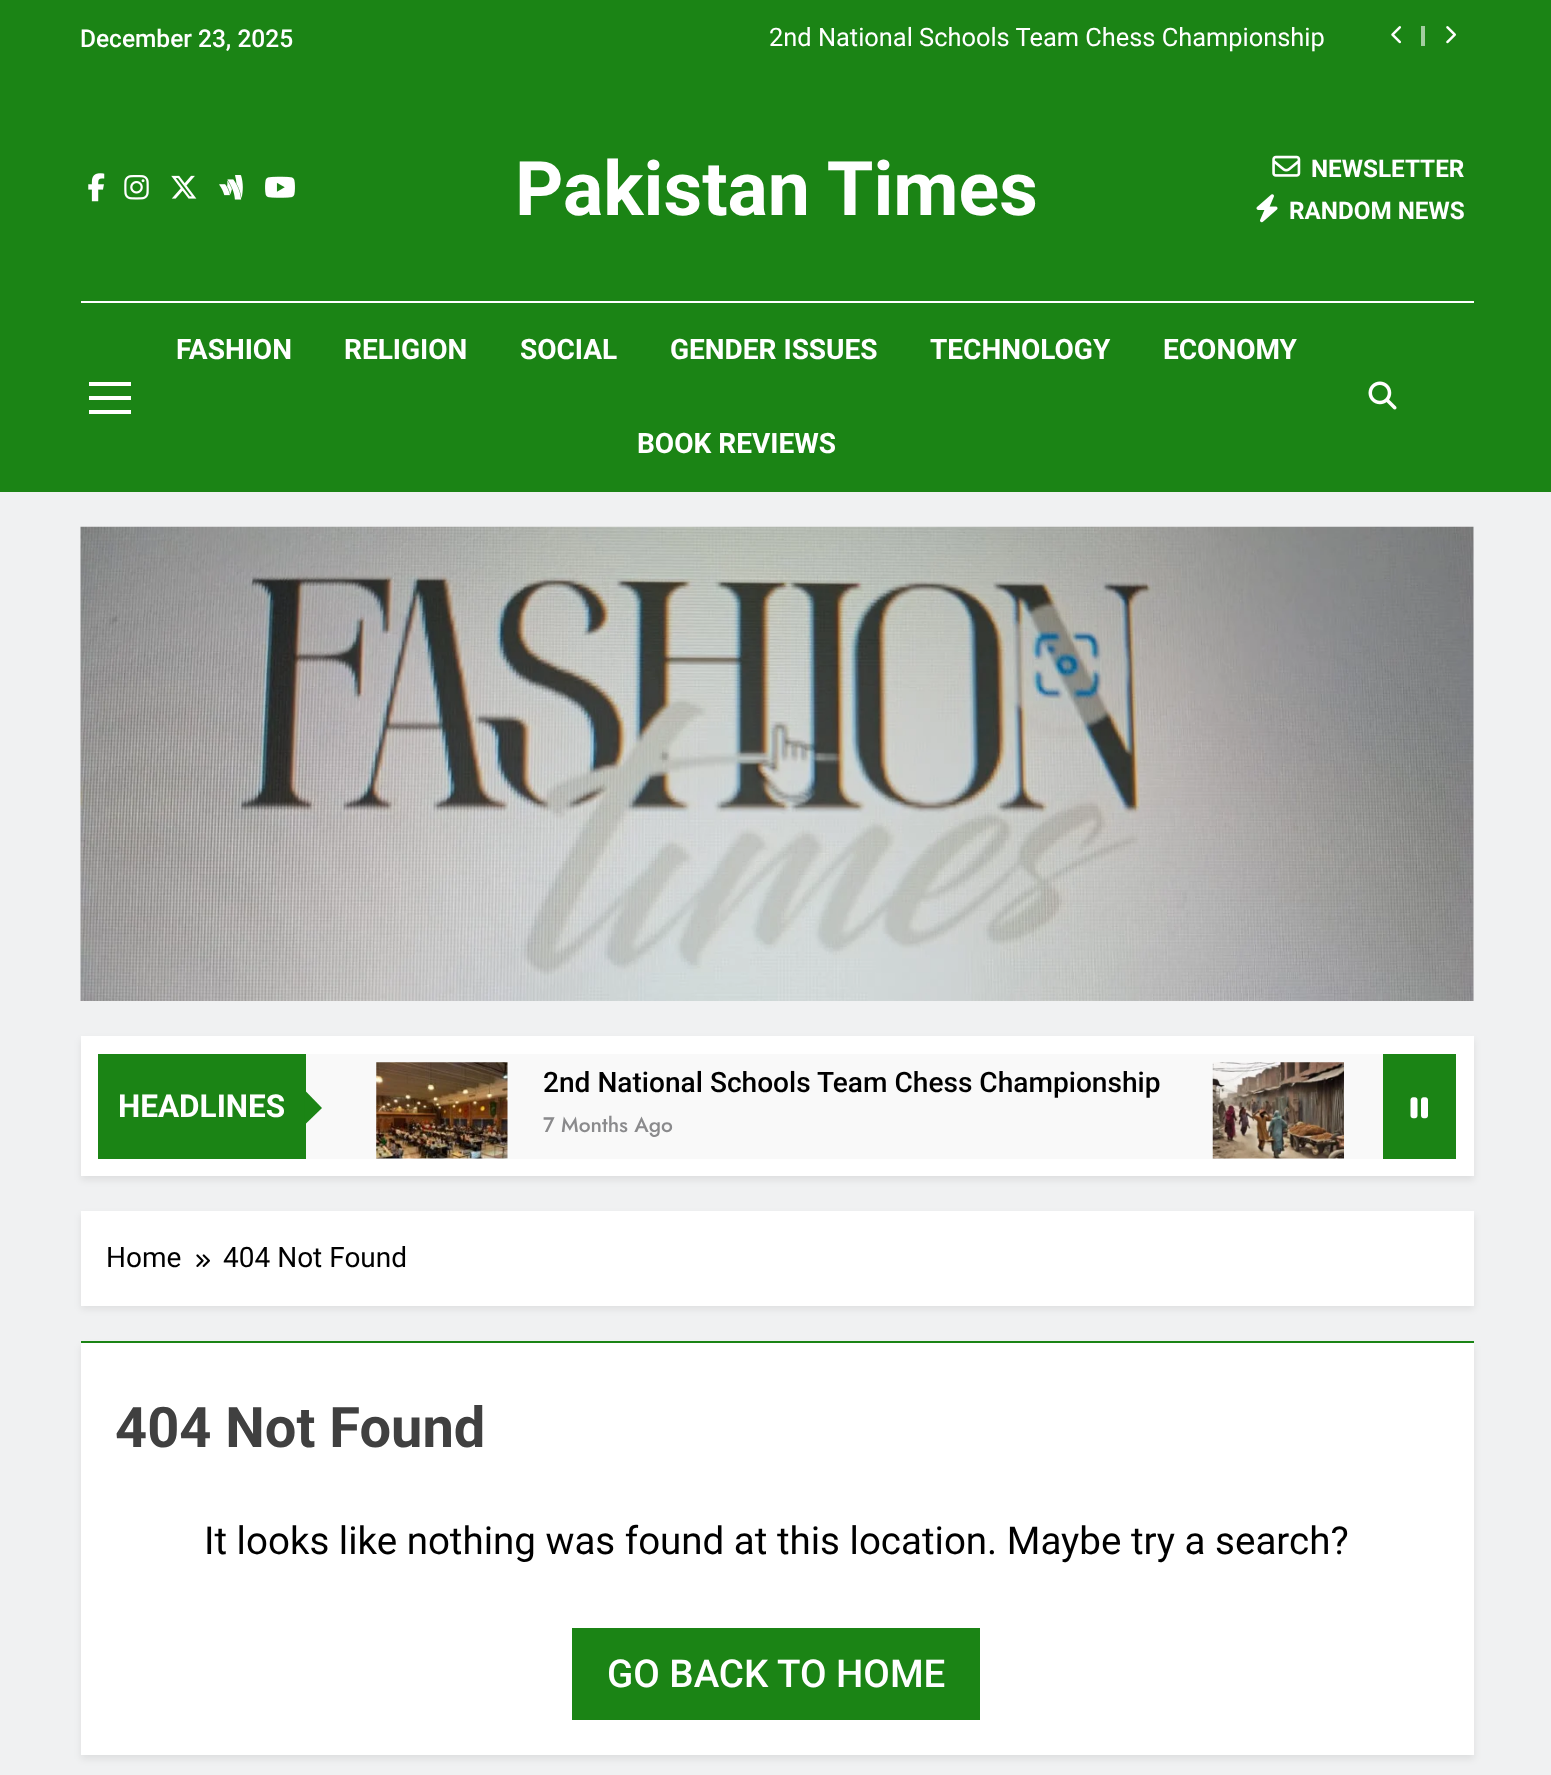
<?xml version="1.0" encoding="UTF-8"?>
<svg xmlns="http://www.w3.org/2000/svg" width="1551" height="1775">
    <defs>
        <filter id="blur1" x="-50%" y="-200%" width="200%" height="500%"><feGaussianBlur stdDeviation="3.5"/></filter>
    </defs>
    <rect width="100%" height="100%" fill="#F0F1F2"/>
    <rect x="0" y="0" width="1551" height="492" fill="#1B8415"/>
    <text x="80" y="47" font-family="Roboto" font-size="24.5" font-weight="500" fill="#FFFFFF">December 23, 2025</text>
    <text x="769" y="46" font-family="Roboto" font-size="25.4" fill="#FFFFFF">2nd National Schools Team Chess Championship</text>
    <image x="1391" y="26" width="10" height="18" href="img_01.png"/>
    <rect x="1421" y="26" width="4" height="20" fill="#A4CEA1"/>
    <image x="1446" y="26" width="10" height="18" href="img_02.png"/>
    <image x="88" y="173" width="17" height="29" href="img_03.png"/>
    <image x="124" y="175" width="25" height="25" href="img_04.png"/>
    <image x="171" y="175" width="26" height="24" href="img_05.png"/>
    <image x="219" y="175" width="24" height="25" href="img_06.png"/>
    <image x="265" y="176" width="30" height="22" href="img_07.png"/>
    <text x="515" y="215" font-family="Roboto" font-size="75.25" font-weight="700" fill="#FFFFFF">Pakistan Times</text>
    <image x="1272" y="155" width="29" height="22" href="img_08.png"/>
    <text x="1311" y="177" font-family="Roboto" font-size="24.25" font-weight="700" fill="#FFFFFF">NEWSLETTER</text>
    <image x="1256" y="194" width="22" height="29" href="img_09.png"/>
    <text x="1289" y="219" font-family="Roboto" font-size="24.25" font-weight="700" fill="#FFFFFF">RANDOM NEWS</text>
    <rect x="81" y="301" width="1393" height="2" fill="#FFFFFF"/>
    <rect x="89" y="382" width="42" height="4" fill="#FFFFFF"/>
    <rect x="89" y="396" width="42" height="4" fill="#FFFFFF"/>
    <rect x="89" y="410" width="42" height="4" fill="#FFFFFF"/>
    <text x="176" y="359" font-family="Roboto" font-size="28" font-weight="700" fill="#FFFFFF">FASHION</text>
    <text x="344" y="359" font-family="Roboto" font-size="28" font-weight="700" fill="#FFFFFF">RELIGION</text>
    <text x="520" y="359" font-family="Roboto" font-size="28" font-weight="700" fill="#FFFFFF">SOCIAL</text>
    <text x="670" y="359" font-family="Roboto" font-size="28" font-weight="700" fill="#FFFFFF">GENDER ISSUES</text>
    <text x="930" y="359" font-family="Roboto" font-size="28" font-weight="700" fill="#FFFFFF">TECHNOLOGY</text>
    <text x="1163" y="359" font-family="Roboto" font-size="28" font-weight="700" fill="#FFFFFF">ECONOMY</text>
    <text x="637" y="453" font-family="Roboto" font-size="28" font-weight="700" fill="#FFFFFF">BOOK REVIEWS</text>
    <image x="1368" y="381" width="29" height="29" href="img_10.png"/>
    <image x="80" y="526" width="1394" height="475" href="img_11.png"/>
    <rect x="81" y="1040" width="1393" height="140" fill="#000000" fill-opacity="0.08" filter="url(#blur1)"/>
    <rect x="81" y="1036" width="1393" height="140" fill="#FFFFFF"/>
    <rect x="98" y="1054" width="208" height="105" fill="#1B8415"/>
    <text x="118" y="1117" font-family="Roboto" font-size="31.5" font-weight="700" fill="#FFFFFF">HEADLINES</text>
    <rect x="306" y="1054" width="1077" height="105" fill="#F9F9F9"/>
    <path d="M 304.5 1125 V 1090 L 322 1108 Z" fill="#1B8415"/>
    <image x="376" y="1062" width="132" height="97" href="img_12.png"/>
    <text x="543" y="1092" font-family="Roboto" font-size="28.1" font-weight="500" fill="#000000">2nd National Schools Team Chess Championship</text>
    <text x="543" y="1132" font-family="Jost" font-size="21" font-weight="500" fill="#8A8A8C">7 Months Ago</text>
    <image x="1212" y="1062" width="132" height="97" href="img_13.png"/>
    <rect x="1383" y="1054" width="73" height="105" fill="#1B8415"/>
    <image x="1410" y="1097" width="18" height="22" href="img_14.png"/>
    <rect x="81" y="1215" width="1393" height="94" fill="#000000" fill-opacity="0.08" filter="url(#blur1)"/>
    <rect x="81" y="1211" width="1393" height="95" fill="#FFFFFF"/>
    <text x="106" y="1267" font-family="Roboto" font-size="28" fill="#000000">Home</text>
    <image x="196" y="1254" width="14" height="13" href="img_15.png"/>
    <text x="223" y="1267" font-family="Roboto" font-size="28" fill="#000000">404 Not Found</text>
    <rect x="81" y="1346" width="1393" height="413" fill="#000000" fill-opacity="0.08" filter="url(#blur1)"/>
    <rect x="81" y="1343" width="1393" height="412" fill="#FFFFFF"/>
    <rect x="81" y="1341" width="1393" height="2" fill="#1B8415"/>
    <text x="115" y="1447" font-family="Roboto" font-size="56" font-weight="700" fill="#404040">404 Not Found</text>
    <text x="204" y="1554" font-family="Roboto" font-size="38.5" fill="#000000">It looks like nothing was found at this location. Maybe try a search?</text>
    <rect x="572" y="1628" width="408" height="92" fill="#1B8415"/>
    <text x="607" y="1687" font-family="Roboto" font-size="38.5" font-weight="500" fill="#FFFFFF">GO BACK TO HOME</text>
</svg>
